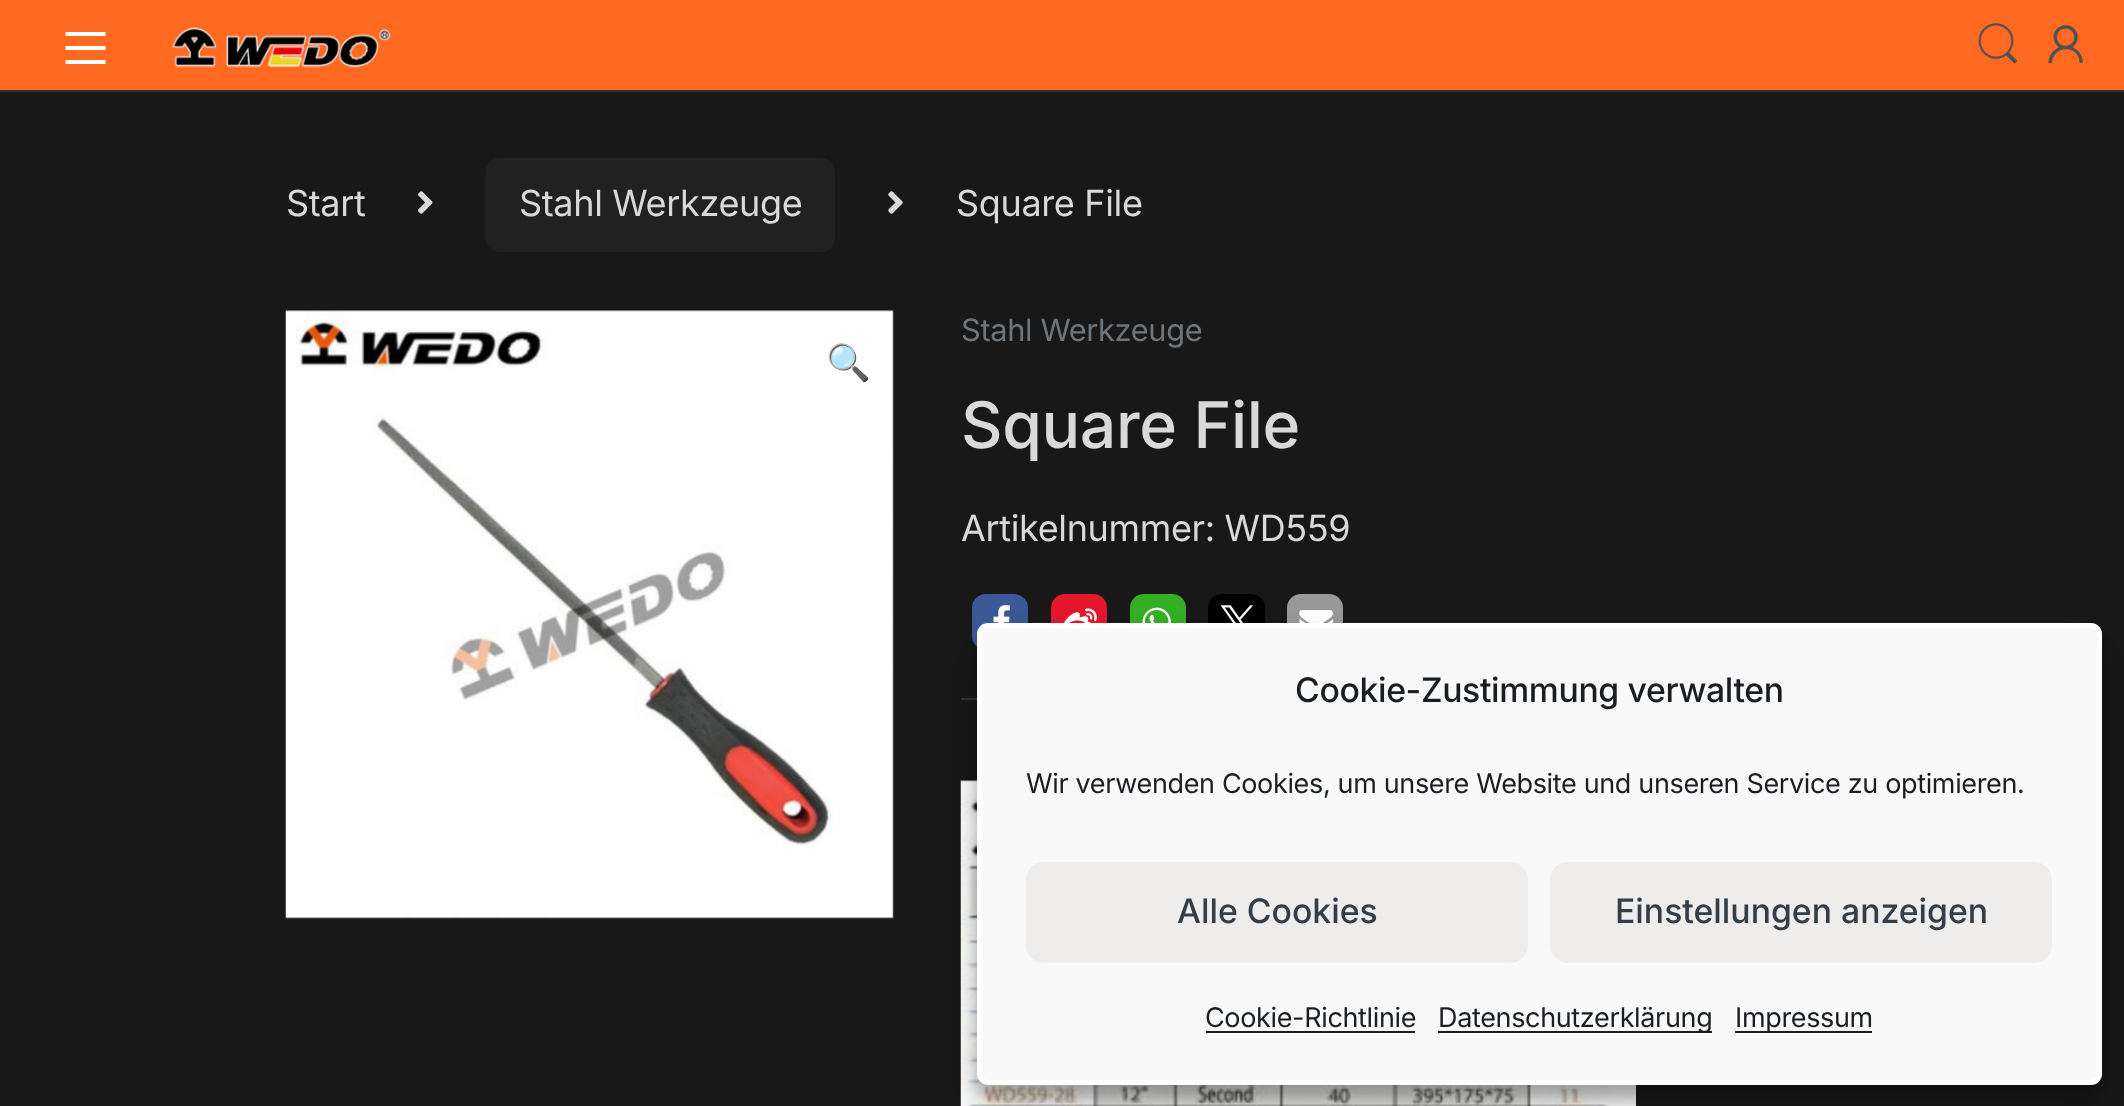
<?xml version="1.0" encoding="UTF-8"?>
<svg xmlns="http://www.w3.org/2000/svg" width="2124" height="1106">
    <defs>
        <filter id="blur1" x="-50%" y="-200%" width="200%" height="500%"><feGaussianBlur stdDeviation="7"/></filter>
        <filter id="blur2" x="-50%" y="-200%" width="200%" height="500%"><feGaussianBlur stdDeviation="22.5"/></filter>
    </defs>
    <rect width="100%" height="100%" fill="#181818"/>
    <rect x="0" y="90" width="2124" height="2" fill="#2E3035"/>
    <rect x="0" y="0" width="2124" height="90" fill="#FF6922"/>
    <path d="M 65.5 64 V 60 H 105.5 V 64 Z M 65.5 46 H 105.5 V 50 H 65.5 Z M 65.5 32 H 105.5 V 36 H 65.5 Z" fill="#FFFFFF"/>
    <image x="171" y="27" width="220" height="41" href="img_01.png"/>
    <image x="1978" y="23" width="40" height="41" href="img_02.png"/>
    <image x="2048" y="25" width="36" height="39" href="img_03.png"/>
    <text x="286" y="216" font-family="Inter" font-size="36" letter-spacing="-0.35" fill="#D9D9D9">Start</text>
    <image x="418" y="191" width="15" height="23" href="img_04.png"/>
    <rect x="486" y="158" width="349" height="94" rx="14" fill="#212121"/>
    <text x="519" y="216" font-family="Inter" font-size="36" letter-spacing="-0.35" fill="#D9D9D9">Stahl Werkzeuge</text>
    <image x="888" y="191" width="15" height="23" href="img_05.png"/>
    <text x="956" y="216" font-family="Inter" font-size="36" letter-spacing="-0.35" fill="#D9D9D9">Square File</text>
    <image x="285" y="310" width="609" height="609" href="img_06.png"/>
    <text x="826" y="375" font-family="Noto Color Emoji" font-size="36" letter-spacing="-0.35" fill="#D9D9D9">🔍</text>
    <text x="961" y="341" font-family="Inter" font-size="30.75" letter-spacing="-0.35" fill="#6E767D">Stahl Werkzeuge</text>
    <text x="961" y="448" font-family="Inter" font-size="64.25" font-weight="500" letter-spacing="-0.35" fill="#D9D9D9">Square File</text>
    <text x="961" y="541" font-family="Inter" font-size="36" letter-spacing="-0.35" fill="#D9D9D9">Artikelnummer: WD559</text>
    <rect x="972" y="594" width="56" height="56" rx="14" fill="#3B5998"/>
    <image x="993" y="605" width="17" height="18" href="img_07.png"/>
    <rect x="1051" y="594" width="56" height="56" rx="14" fill="#E6162D"/>
    <image x="1064" y="608" width="33" height="15" href="img_08.png"/>
    <rect x="1130" y="594" width="56" height="56" rx="14" fill="#34AF23"/>
    <image x="1142" y="607" width="29" height="16" href="img_09.png"/>
    <rect x="1208" y="594" width="57" height="56" rx="14" fill="#000000"/>
    <image x="1220" y="605" width="34" height="18" href="img_10.png"/>
    <rect x="1287" y="594" width="56" height="56" rx="14" fill="#999999"/>
    <image x="1299" y="610" width="35" height="13" href="img_11.png"/>
    <rect x="961" y="698" width="16" height="2" fill="#2F3336"/>
    <image x="960" y="780" width="676" height="326" href="img_12.png"/>
    <rect x="977" y="637" width="1125" height="461" rx="11" fill="#000000" fill-opacity="0.23" filter="url(#blur1)"/>
    <rect x="977" y="646" width="1125" height="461" rx="11" fill="#000000" fill-opacity="0.19" filter="url(#blur2)"/>
    <rect x="979.5" y="625.5" width="1120" height="457" rx="8.5" fill="#F9F9F9" stroke="#FFFFFF" stroke-width="5"/>
    <text x="1295" y="702" font-family="Inter" font-size="33.75" font-weight="500" letter-spacing="-0.35" fill="#191E23">Cookie-Zustimmung verwalten</text>
    <text x="1026" y="793" font-family="Inter" font-size="27" letter-spacing="-0.35" fill="#191E23">Wir verwenden Cookies, um unsere Website und unseren Service zu optimieren.</text>
    <rect x="1027" y="863" width="500" height="99" rx="17" fill="#EFECEC" stroke="#EFECEC" stroke-width="2"/>
    <text x="1177" y="923" font-family="Inter" font-size="33.75" font-weight="500" fill="#333E48">Alle Cookies</text>
    <rect x="1551" y="863" width="500" height="99" rx="17" fill="#EFECEC" stroke="#EFECEC" stroke-width="2"/>
    <text x="1615" y="923" font-family="Inter" font-size="33.75" font-weight="500" fill="#333E48">Einstellungen anzeigen</text>
    <text x="1205" y="1027" font-family="Inter" font-size="27" letter-spacing="-0.35" fill="#191E23">Cookie-Richtlinie</text>
    <rect x="1206" y="1031" width="209" height="2" fill="#191E23"/>
    <rect x="1438" y="1031" width="274" height="2" fill="#191E23"/>
    <text x="1438" y="1027" font-family="Inter" font-size="27" letter-spacing="-0.35" fill="#191E23">Datenschutzerklärung</text>
    <rect x="1735" y="1031" width="137" height="2" fill="#191E23"/>
    <text x="1735" y="1027" font-family="Inter" font-size="27" letter-spacing="-0.35" fill="#191E23">Impressum</text>
</svg>
